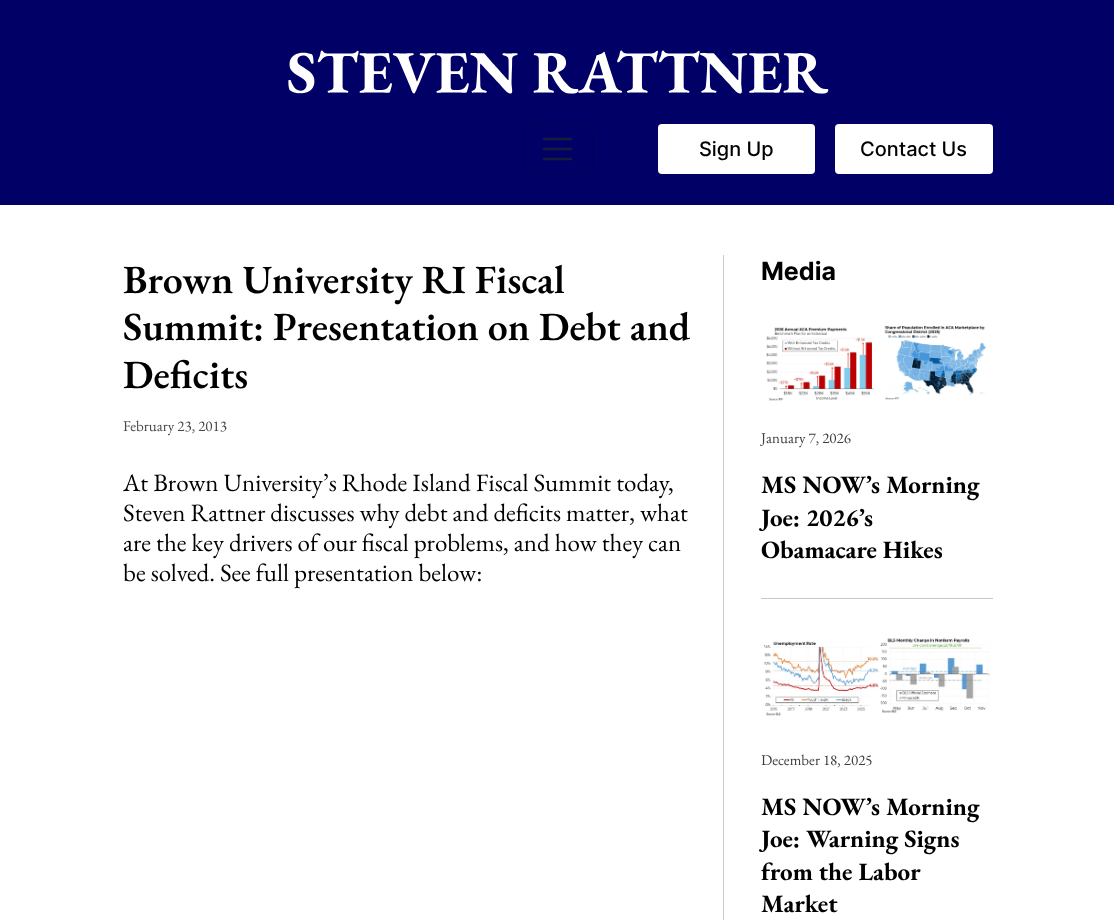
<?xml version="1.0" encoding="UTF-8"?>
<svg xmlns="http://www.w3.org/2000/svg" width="1114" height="920">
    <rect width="100%" height="100%" fill="#FFFFFF"/>
    <rect x="0" y="0" width="1114" height="205" fill="#000066"/>
    <image x="288" y="50" width="541" height="44" href="img_01.png"/>
    <rect x="523.5" y="124.5" width="69" height="49" rx="7.5" fill="none" stroke="#000057"/>
    <path d="M 544 139 H 571 M 544 149 H 571 M 544 159 H 571" fill="none" stroke="#191C38" stroke-width="2.5" stroke-linecap="round"/>
    <rect x="658" y="124" width="157" height="50" rx="4" fill="#FFFFFF"/>
    <text x="699" y="156" font-family="Inter" font-size="20" font-weight="500" fill="#000000">Sign Up</text>
    <rect x="835" y="124" width="158" height="50" rx="4" fill="#FFFFFF"/>
    <text x="860" y="156" font-family="Inter" font-size="20" font-weight="500" fill="#000000">Contact Us</text>
    <text font-family="EB Garamond" font-size="40" font-weight="600" fill="#000000">
        <tspan x="123" y="293">Brown University RI Fiscal</tspan>
        <tspan x="123" y="340">Summit: Presentation on Debt and</tspan>
        <tspan x="123" y="388">Deficits</tspan>
    </text>
    <text x="123" y="431" font-family="EB Garamond" font-size="15" fill="#474747">February 23, 2013</text>
    <text font-family="EB Garamond" font-size="25" fill="#000000">
        <tspan x="123" y="491">At Brown University’s Rhode Island Fiscal Summit today,</tspan>
        <tspan x="123" y="521">Steven Rattner discusses why debt and deficits matter, what</tspan>
        <tspan x="123" y="551">are the key drivers of our fiscal problems, and how they can</tspan>
        <tspan x="123" y="581">be solved. See full presentation below:</tspan>
    </text>
    <rect x="723" y="255" width="1" height="665" fill="#CACACA"/>
    <text x="761" y="280" font-family="Inter" font-size="25" font-weight="700" fill="#000000">Media</text>
    <rect x="761" y="598" width="232" height="1" fill="#C8C8C8"/>
    <image x="766" y="325" width="221" height="76" href="img_02.png"/>
    <text x="761" y="443" font-family="EB Garamond" font-size="15" fill="#3D3D3D">January 7, 2026</text>
    <text font-family="EB Garamond" font-size="25" font-weight="700" fill="#000000">
        <tspan x="761" y="493">MS NOW’s Morning</tspan>
        <tspan x="761" y="526">Joe: 2026’s</tspan>
        <tspan x="761" y="558">Obamacare Hikes</tspan>
    </text>
    <image x="764" y="638" width="226" height="78" href="img_03.png"/>
    <text x="761" y="765" font-family="EB Garamond" font-size="15" fill="#3D3D3D">December 18, 2025</text>
    <text font-family="EB Garamond" font-size="25" font-weight="700" fill="#000000">
        <tspan x="761" y="815">MS NOW’s Morning</tspan>
        <tspan x="761" y="847">Joe: Warning Signs</tspan>
        <tspan x="761" y="880">from the Labor</tspan>
        <tspan x="761" y="912">Market</tspan>
    </text>
</svg>
